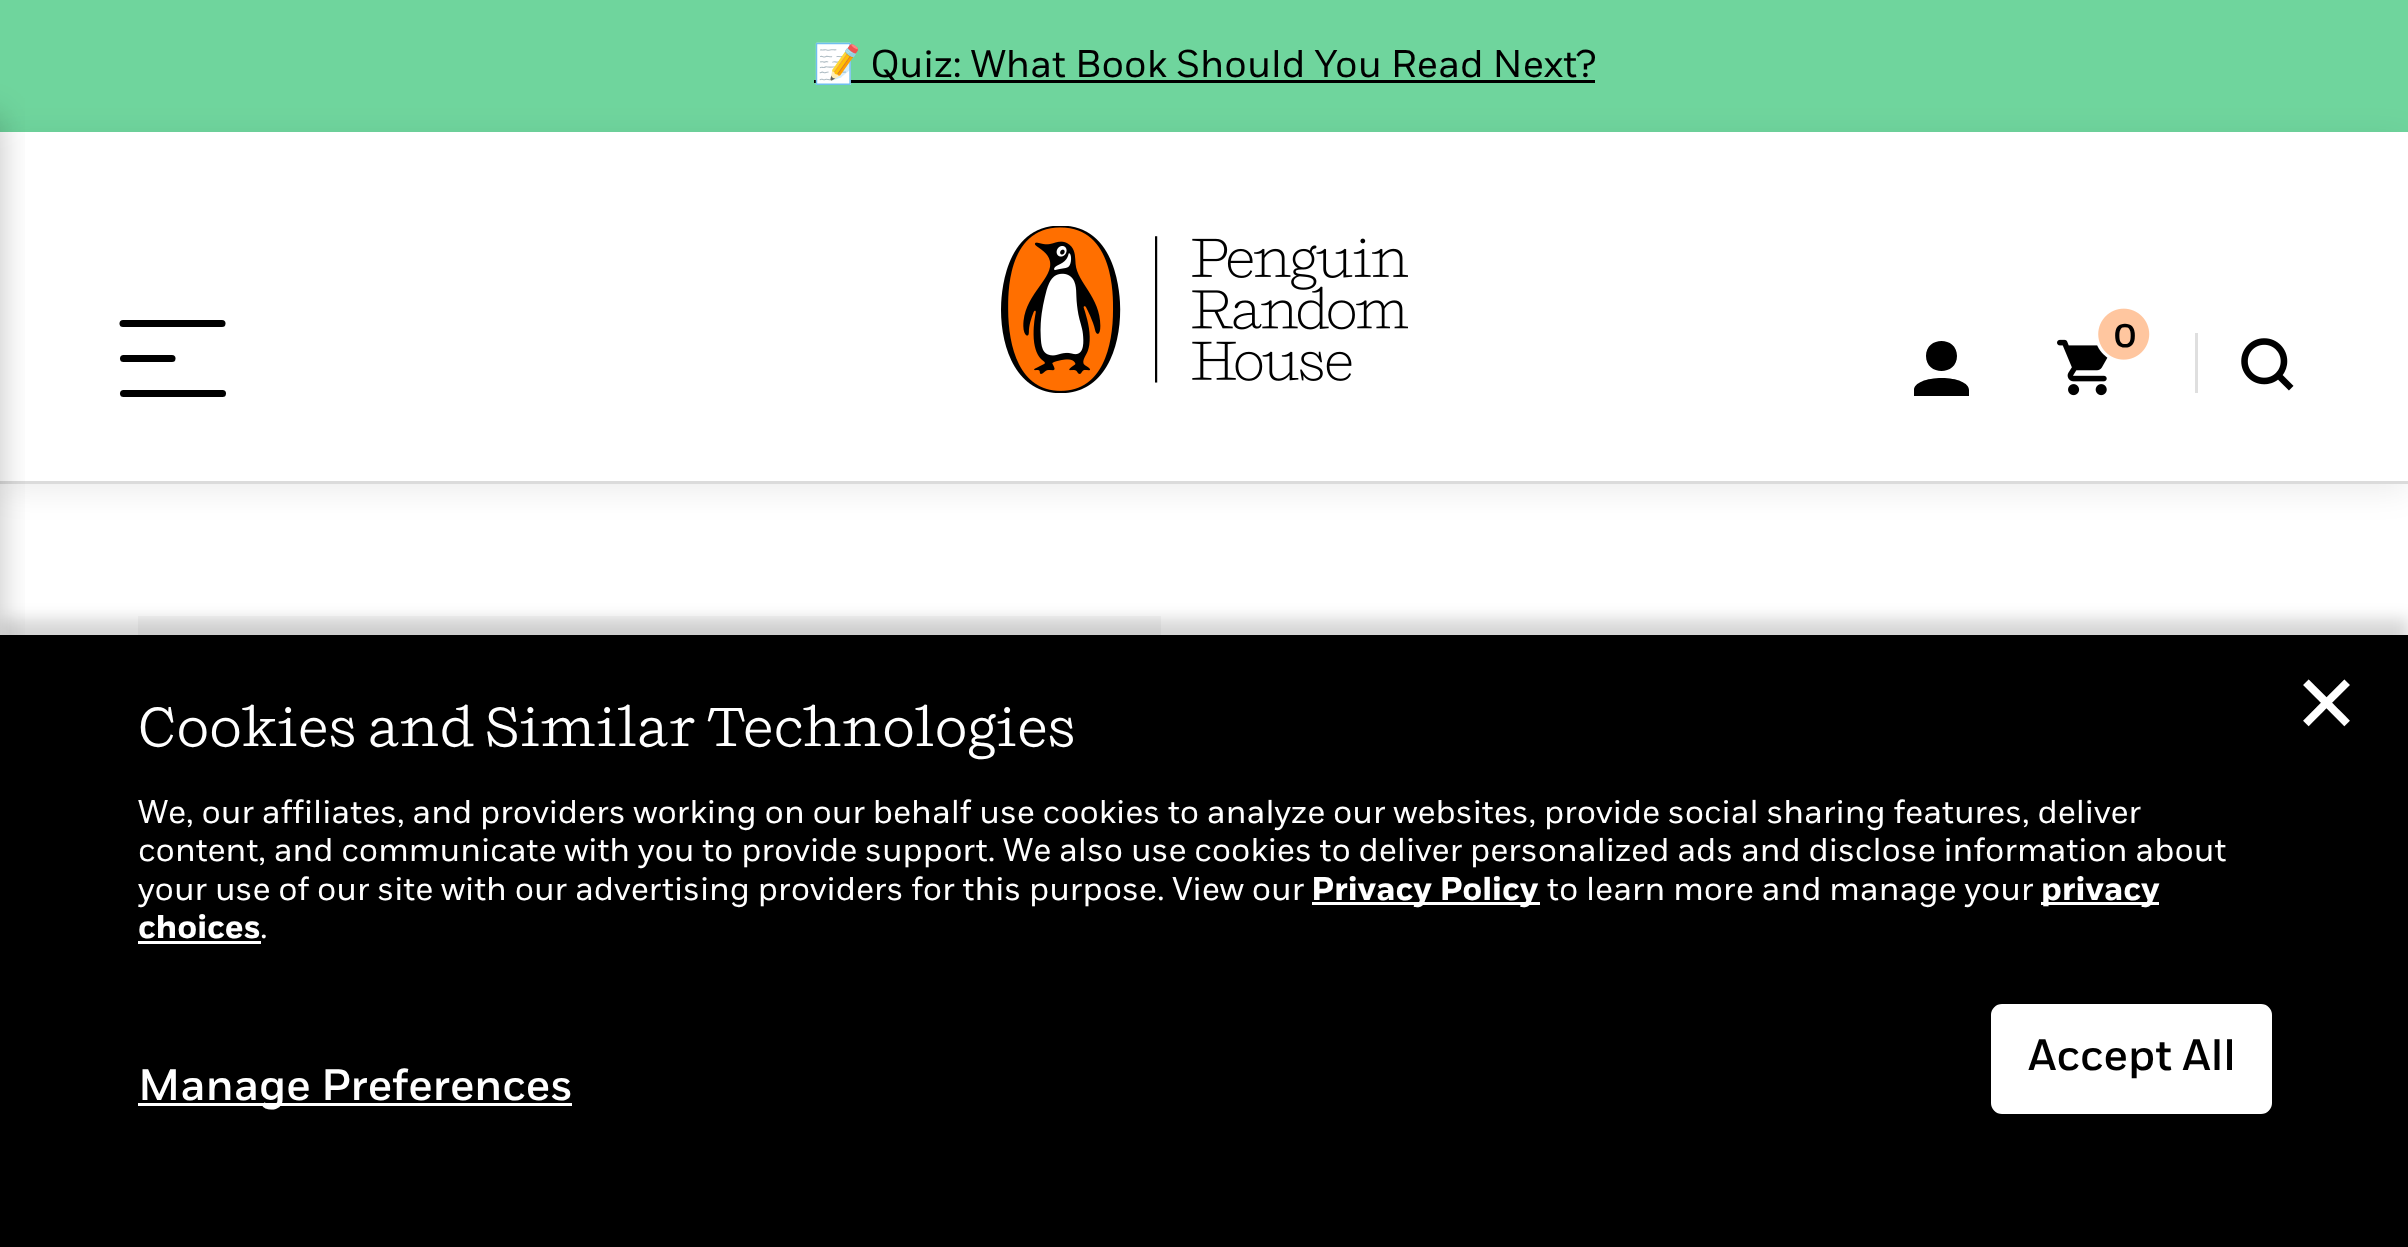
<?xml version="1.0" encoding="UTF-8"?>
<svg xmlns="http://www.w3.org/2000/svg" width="2408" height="1247">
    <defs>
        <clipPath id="clip1"><path d="M 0 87 H 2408 V 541 H 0 Z M 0 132 H 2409 V 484 H 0 Z" clip-rule="evenodd"/></clipPath>
        <filter id="blur1" x="-50%" y="-200%" width="200%" height="500%"><feGaussianBlur stdDeviation="16.5"/></filter>
        <clipPath id="clip2"><rect x="814" y="41" width="781" height="50"/></clipPath>
        <filter id="blur2" x="-50%" y="-200%" width="200%" height="500%"><feGaussianBlur stdDeviation="8"/></filter>
    </defs>
    <rect width="100%" height="100%" fill="#FFFFFF"/>
    <rect x="0" y="0" width="2408" height="132" fill="#6FD59D"/>
    <g clip-path="url(#clip1)">
        <rect x="0" y="138" width="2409" height="352" fill="#000000" fill-opacity="0.08" filter="url(#blur1)"/>
    </g>
    <rect x="0" y="481" width="2408" height="3" fill="#DBDBDB"/>
    <rect x="-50" y="116" width="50" height="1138" fill="#000000" fill-opacity="0.24" filter="url(#blur1)"/>
    <rect x="814" y="80" width="781" height="3" fill="#000000"/>
    <g clip-path="url(#clip2)">
        <text x="813" y="77" font-family="Noto Color Emoji" font-size="38.5" fill="#000000">📝</text>
    </g>
    <text x="870" y="77" font-family="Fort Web" font-size="38.5" fill="#000000">Quiz: What Book Should You Read Next?</text>
    <path d="M 123 323.5 H 222" fill="none" stroke="#000000" stroke-width="7" stroke-linecap="round"/>
    <path d="M 123.5 358.5 H 172" fill="none" stroke="#000000" stroke-width="7" stroke-linecap="round"/>
    <path d="M 123.5 393.5 H 222.5" fill="none" stroke="#000000" stroke-width="7" stroke-linecap="round"/>
    <image x="1001" y="226" width="407" height="167" href="img_01.png"/>
    <path d="M 1926 356 C 1926 336 1957 336 1957 356 C 1957 376 1926 376 1926 356 Z M 1914 396 V 390 C 1914 383 1926 378 1942 378 C 1957 378 1969 383 1969 390 V 396 Z" fill="#000000" fill-rule="evenodd"/>
    <image x="2057" y="308" width="93" height="88" href="img_02.png"/>
    <text x="2113" y="347" font-family="Fort Web" font-size="38" font-weight="500" fill="#000000">0</text>
    <rect x="2195" y="333" width="3" height="60" fill="#DFDFDF"/>
    <image x="2241" y="338" width="53" height="53" href="img_03.png"/>
    <rect x="138" y="616" width="1023" height="19" fill="#F6F6F6"/>
    <rect x="0" y="619" width="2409" height="613" fill="#000000" fill-opacity="0.16" filter="url(#blur2)"/>
    <rect x="0" y="635" width="2408" height="612" fill="#000000"/>
    <text x="138" y="746" font-family="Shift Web" font-size="55" fill="#FFFFFF">Cookies and Similar Technologies</text>
    <text font-family="Fort Web" font-size="33" fill="#FFFFFF">
        <tspan x="138" y="823">We, our affiliates, and providers working on our behalf use cookies to analyze our websites, provide social sharing features, deliver</tspan>
        <tspan x="138" y="861">content, and communicate with you to provide support. We also use cookies to deliver personalized ads and disclose information about</tspan>
        <tspan x="138" y="900">your use of our site with our advertising providers for this purpose. View our</tspan>
    </text>
    <rect x="1312" y="902" width="228" height="3" fill="#FFFFFF"/>
    <text x="1311" y="900" font-family="Fort Web" font-size="33" font-weight="700" fill="#FFFFFF">Privacy Policy</text>
    <text x="1547" y="900" font-family="Fort Web" font-size="33" fill="#FFFFFF">to learn more and manage your</text>
    <rect x="2041" y="902" width="118" height="3" fill="#FFFFFF"/>
    <text x="2041" y="900" font-family="Fort Web" font-size="33" font-weight="700" fill="#FFFFFF">privacy</text>
    <text x="138" y="938" font-family="Fort Web" font-size="33" font-weight="700" fill="#FFFFFF">choices</text>
    <rect x="138" y="941" width="123" height="3" fill="#FFFFFF"/>
    <text x="260" y="938" font-family="Fort Web" font-size="33" fill="#FFFFFF">.</text>
    <text x="2293" y="732" font-family="DejaVu Sans" font-size="80" fill="#FFFFFF">✕</text>
    <rect x="1994" y="1007" width="275" height="104" rx="8" fill="#FFFFFF" stroke="#FFFFFF" stroke-width="6"/>
    <text x="2028" y="1070" font-family="Fort Web" font-size="44" font-weight="500" fill="#000000">Accept All</text>
    <rect x="138" y="1103" width="434" height="3" fill="#FFFFFF"/>
    <text x="138" y="1100" font-family="Fort Web" font-size="44" font-weight="500" fill="#FFFFFF">Manage Preferences</text>
</svg>
